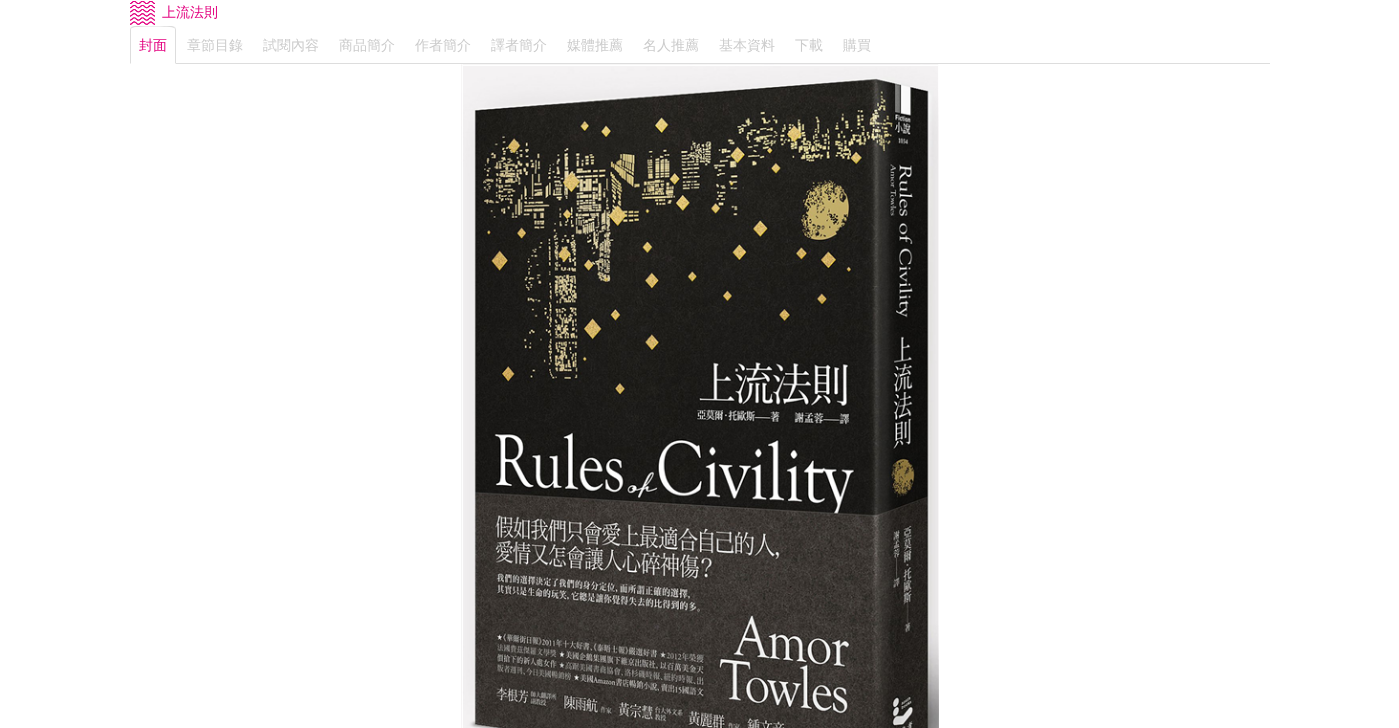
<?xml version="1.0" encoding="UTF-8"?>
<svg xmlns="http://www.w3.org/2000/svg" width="1399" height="728">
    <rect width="100%" height="100%" fill="#FFFFFF"/>
    <image x="130" y="1" width="25" height="24" href="img_01.png"/>
    <text x="162" y="17" font-family="WenQuanYi Zen Hei" font-size="14" font-weight="500" fill="#E3007F">上流法則</text>
    <rect x="176" y="63" width="1094" height="1" fill="#DDDDDD"/>
    <path d="M 134 26 L 131 27 L 132 28 C 133 26 173 26 174 28 L 175 27 L 172 26 Z" fill="#DDDDDD"/>
    <path d="M 176 64 V 30 C 176 29 175.5 28 175 27 L 174 28 C 175 28 175 29 175 30 V 63 Z M 130 64 L 131 63 V 30 C 131 29 131 28 132 28 L 131 27 C 130.5 28 130 29 130 30 Z" fill="#DDDDDD"/>
    <text x="139" y="50" font-family="WenQuanYi Zen Hei" font-size="14" font-weight="500" fill="#E3007F">封面</text>
    <text x="187" y="50" font-family="WenQuanYi Zen Hei" font-size="14" font-weight="500" fill="#CCCCCC">章節目錄</text>
    <text x="263" y="50" font-family="WenQuanYi Zen Hei" font-size="14" font-weight="500" fill="#CCCCCC">試閱內容</text>
    <text x="339" y="50" font-family="WenQuanYi Zen Hei" font-size="14" font-weight="500" fill="#CCCCCC">商品簡介</text>
    <text x="415" y="50" font-family="WenQuanYi Zen Hei" font-size="14" font-weight="500" fill="#CCCCCC">作者簡介</text>
    <text x="491" y="50" font-family="WenQuanYi Zen Hei" font-size="14" font-weight="500" fill="#CCCCCC">譯者簡介</text>
    <text x="567" y="50" font-family="WenQuanYi Zen Hei" font-size="14" font-weight="500" fill="#CCCCCC">媒體推薦</text>
    <text x="643" y="50" font-family="WenQuanYi Zen Hei" font-size="14" font-weight="500" fill="#CCCCCC">名人推薦</text>
    <text x="719" y="50" font-family="WenQuanYi Zen Hei" font-size="14" font-weight="500" fill="#CCCCCC">基本資料</text>
    <text x="795" y="50" font-family="WenQuanYi Zen Hei" font-size="14" font-weight="500" fill="#CCCCCC">下載</text>
    <text x="843" y="50" font-family="WenQuanYi Zen Hei" font-size="14" font-weight="500" fill="#CCCCCC">購買</text>
    <image x="461" y="64" width="478" height="664" href="img_02.png"/>
</svg>
